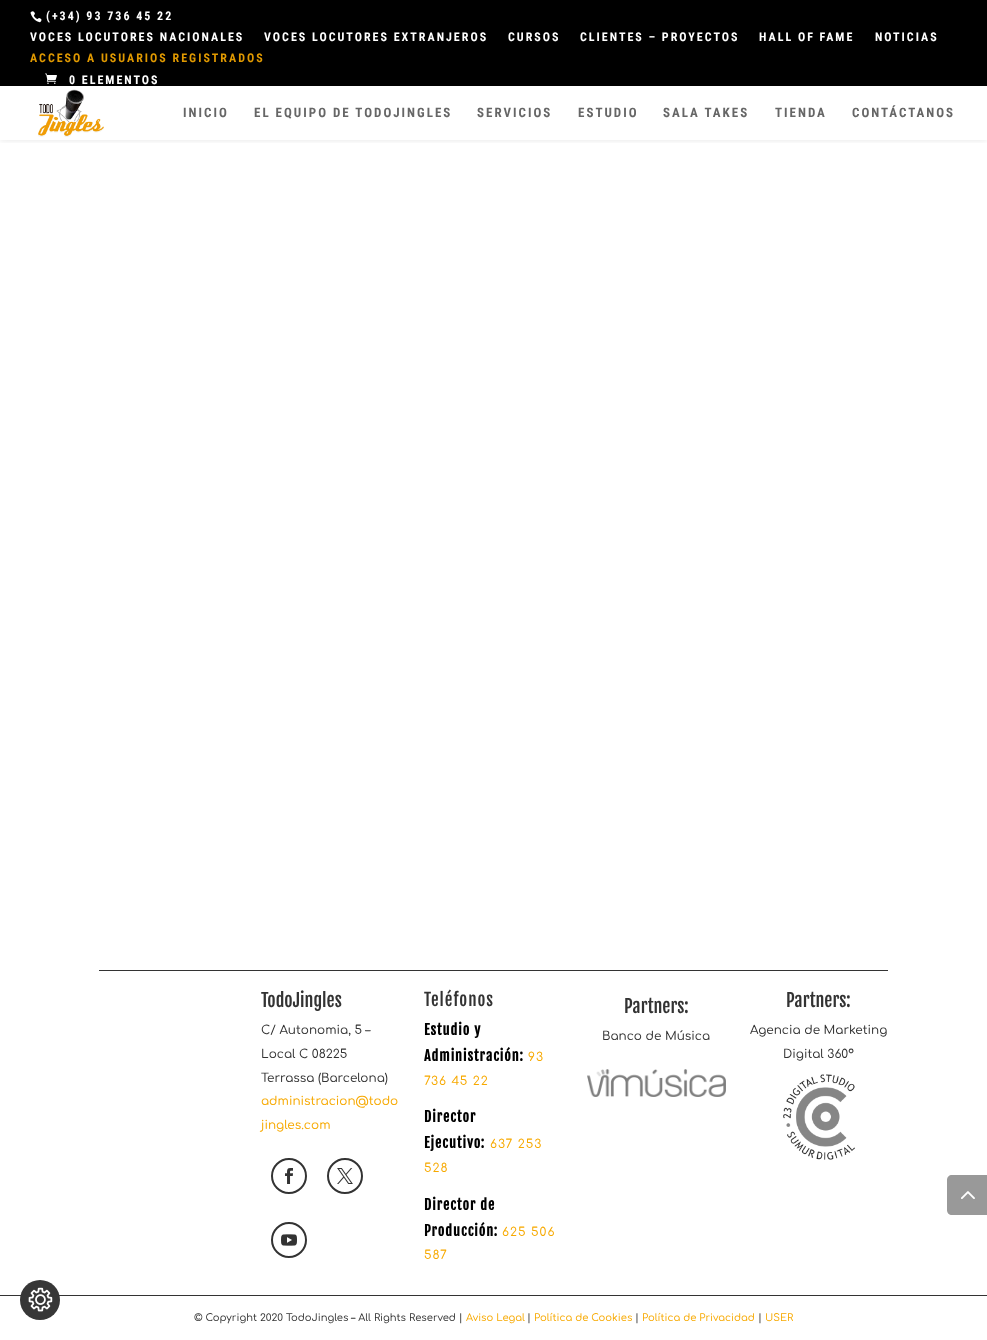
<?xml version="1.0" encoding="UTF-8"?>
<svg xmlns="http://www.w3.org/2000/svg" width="987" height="1340">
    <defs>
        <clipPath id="clip1"><rect x="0" y="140" width="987" height="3"/></clipPath>
        <filter id="blur1" x="-50%" y="-200%" width="200%" height="500%"><feGaussianBlur stdDeviation="3.5"/></filter>
    </defs>
    <rect width="100%" height="100%" fill="#FFFFFF"/>
    <g clip-path="url(#clip1)">
        <rect x="0" y="86" width="987" height="54" fill="#000000" fill-opacity="0.1" filter="url(#blur1)"/>
    </g>
    <rect x="0" y="0" width="987" height="86" fill="#000000"/>
    <image x="30" y="11" width="12" height="12" href="img_01.png"/>
    <text x="46" y="20" font-family="Roboto Condensed" font-size="12" font-weight="700" letter-spacing="2" fill="#FFFFFF">(+34) 93 736 45 22</text>
    <text x="30" y="41" font-family="Roboto Condensed" font-size="12" font-weight="700" letter-spacing="2" fill="#FFFFFF">VOCES LOCUTORES NACIONALES</text>
    <text x="264" y="41" font-family="Roboto Condensed" font-size="12" font-weight="700" letter-spacing="2" fill="#FFFFFF">VOCES LOCUTORES EXTRANJEROS</text>
    <text x="508" y="41" font-family="Roboto Condensed" font-size="12" font-weight="700" letter-spacing="2" fill="#FFFFFF">CURSOS</text>
    <text x="580" y="41" font-family="Roboto Condensed" font-size="12" font-weight="700" letter-spacing="2" fill="#FFFFFF">CLIENTES – PROYECTOS</text>
    <text x="759" y="41" font-family="Roboto Condensed" font-size="12" font-weight="700" letter-spacing="2" fill="#FFFFFF">HALL OF FAME</text>
    <text x="875" y="41" font-family="Roboto Condensed" font-size="12" font-weight="700" letter-spacing="2" fill="#FFFFFF">NOTICIAS</text>
    <text x="30" y="62" font-family="Roboto Condensed" font-size="12" font-weight="700" letter-spacing="2" fill="#E09900">ACCESO A USUARIOS REGISTRADOS</text>
    <image x="45" y="73" width="12" height="11" href="img_02.png"/>
    <text x="69" y="84" font-family="Roboto Condensed" font-size="12" font-weight="700" letter-spacing="2" fill="#FFFFFF">0 ELEMENTOS</text>
    <image x="38" y="89" width="66" height="48" href="img_03.png"/>
    <text x="183" y="117" font-family="Roboto Condensed" font-size="13" font-weight="700" letter-spacing="2" fill="#666666">INICIO</text>
    <text x="254" y="117" font-family="Roboto Condensed" font-size="13" font-weight="700" letter-spacing="2" fill="#666666">EL EQUIPO DE TODOJINGLES</text>
    <text x="477" y="117" font-family="Roboto Condensed" font-size="13" font-weight="700" letter-spacing="2" fill="#666666">SERVICIOS</text>
    <text x="578" y="117" font-family="Roboto Condensed" font-size="13" font-weight="700" letter-spacing="2" fill="#666666">ESTUDIO</text>
    <text x="663" y="117" font-family="Roboto Condensed" font-size="13" font-weight="700" letter-spacing="2" fill="#666666">SALA TAKES</text>
    <text x="775" y="117" font-family="Roboto Condensed" font-size="13" font-weight="700" letter-spacing="2" fill="#666666">TIENDA</text>
    <text x="852" y="117" font-family="Roboto Condensed" font-size="13" font-weight="700" letter-spacing="2" fill="#666666">CONTÁCTANOS</text>
    <rect x="99" y="970" width="789" height="1" fill="#333333"/>
    <text x="261" y="1007" font-family="Fjalla One" font-size="18" fill="#333333">TodoJingles</text>
    <text x="261" y="1034" font-family="Comfortaa" font-size="12" font-weight="500" fill="#333333">C/ Autonomia, 5 –</text>
    <text x="261" y="1058" font-family="Comfortaa" font-size="12" font-weight="500" fill="#333333">Local C 08225</text>
    <text x="261" y="1082" font-family="Comfortaa" font-size="12" font-weight="500" fill="#333333">Terrassa (Barcelona)</text>
    <text x="261" y="1105" font-family="Comfortaa" font-size="12" font-weight="500" fill="#F7A900">administracion@todo</text>
    <text x="261" y="1129" font-family="Comfortaa" font-size="12" font-weight="500" fill="#F7A900">jingles.com</text>
    <circle cx="289" cy="1176" r="17" fill="none" stroke="#333333" stroke-width="2"/>
    <image x="285" y="1168" width="8" height="16" href="img_04.png"/>
    <circle cx="345" cy="1176" r="17" fill="none" stroke="#333333" stroke-width="2"/>
    <image x="337" y="1168" width="16" height="16" href="img_05.png"/>
    <circle cx="289" cy="1240" r="17" fill="none" stroke="#333333" stroke-width="2"/>
    <image x="281" y="1234" width="16" height="12" href="img_06.png"/>
    <text x="424" y="1006" font-family="Fjalla One" font-size="17" letter-spacing="1" fill="#333333">Teléfonos</text>
    <text font-family="Fjalla One" font-size="14" font-weight="700" letter-spacing="1" fill="#000000">
        <tspan x="424" y="1035">Estudio y</tspan>
        <tspan x="424" y="1061">Administración:</tspan>
    </text>
    <text x="528" y="1061" font-family="Comfortaa" font-size="12" font-weight="500" letter-spacing="1" fill="#F7A900">93</text>
    <text x="424" y="1085" font-family="Comfortaa" font-size="12" font-weight="500" letter-spacing="1" fill="#F7A900">736 45 22</text>
    <text font-family="Fjalla One" font-size="14" font-weight="700" letter-spacing="1" fill="#000000">
        <tspan x="424" y="1122">Director</tspan>
        <tspan x="424" y="1148">Ejecutivo:</tspan>
    </text>
    <text x="490" y="1148" font-family="Comfortaa" font-size="12" font-weight="500" letter-spacing="1" fill="#F7A900">637 253</text>
    <text x="424" y="1172" font-family="Comfortaa" font-size="12" font-weight="500" letter-spacing="1" fill="#F7A900">528</text>
    <text font-family="Fjalla One" font-size="14" font-weight="700" letter-spacing="1" fill="#000000">
        <tspan x="424" y="1210">Director de</tspan>
        <tspan x="424" y="1236">Producción:</tspan>
    </text>
    <text x="502" y="1236" font-family="Comfortaa" font-size="12" font-weight="500" letter-spacing="1" fill="#F7A900">625 506</text>
    <text x="424" y="1259" font-family="Comfortaa" font-size="12" font-weight="500" letter-spacing="1" fill="#F7A900">587</text>
    <text x="624" y="1013" font-family="Fjalla One" font-size="18" fill="#333333">Partners:</text>
    <text x="602" y="1040" font-family="Comfortaa" font-size="12" font-weight="500" fill="#333333">Banco de Música</text>
    <image x="587" y="1069" width="139" height="28" href="img_07.png"/>
    <text x="786" y="1007" font-family="Fjalla One" font-size="18" fill="#333333">Partners:</text>
    <text x="750" y="1034" font-family="Comfortaa" font-size="12" font-weight="500" fill="#333333">Agencia de Marketing</text>
    <text x="783" y="1058" font-family="Comfortaa" font-size="12" font-weight="500" fill="#333333">Digital 360º</text>
    <image x="783" y="1074" width="72" height="86" href="img_08.png"/>
    <rect x="0" y="1295" width="987" height="1" fill="#333333"/>
    <text x="194" y="1321" font-family="Comfortaa" font-size="10" font-weight="500" fill="#333333">© Copyright 2020 TodoJingles – All Rights Reserved |</text>
    <text x="466" y="1321" font-family="Comfortaa" font-size="10" font-weight="500" fill="#F7A900">Aviso Legal</text>
    <text x="527" y="1321" font-family="Comfortaa" font-size="10" font-weight="500" fill="#333333">|</text>
    <text x="534" y="1321" font-family="Comfortaa" font-size="10" font-weight="500" fill="#F7A900">Política de Cookies</text>
    <text x="635" y="1321" font-family="Comfortaa" font-size="10" font-weight="500" fill="#333333">|</text>
    <text x="642" y="1321" font-family="Comfortaa" font-size="10" font-weight="500" fill="#F7A900">Política de Privacidad</text>
    <text x="758" y="1321" font-family="Comfortaa" font-size="10" font-weight="500" fill="#333333">|</text>
    <text x="765" y="1321" font-family="Comfortaa" font-size="10" font-weight="500" fill="#F7A900">USER</text>
    <path d="M 952 1175 H 987 V 1215 H 952 C 949 1215 947 1213 947 1210 V 1180 C 947 1177 949 1175 952 1175 Z" fill="#999999"/>
    <image x="961" y="1191" width="14" height="8" href="img_09.png"/>
    <circle cx="40" cy="1300" r="20" fill="#373737"/>
    <image x="28" y="1287" width="25" height="25" href="img_10.png"/>
</svg>
